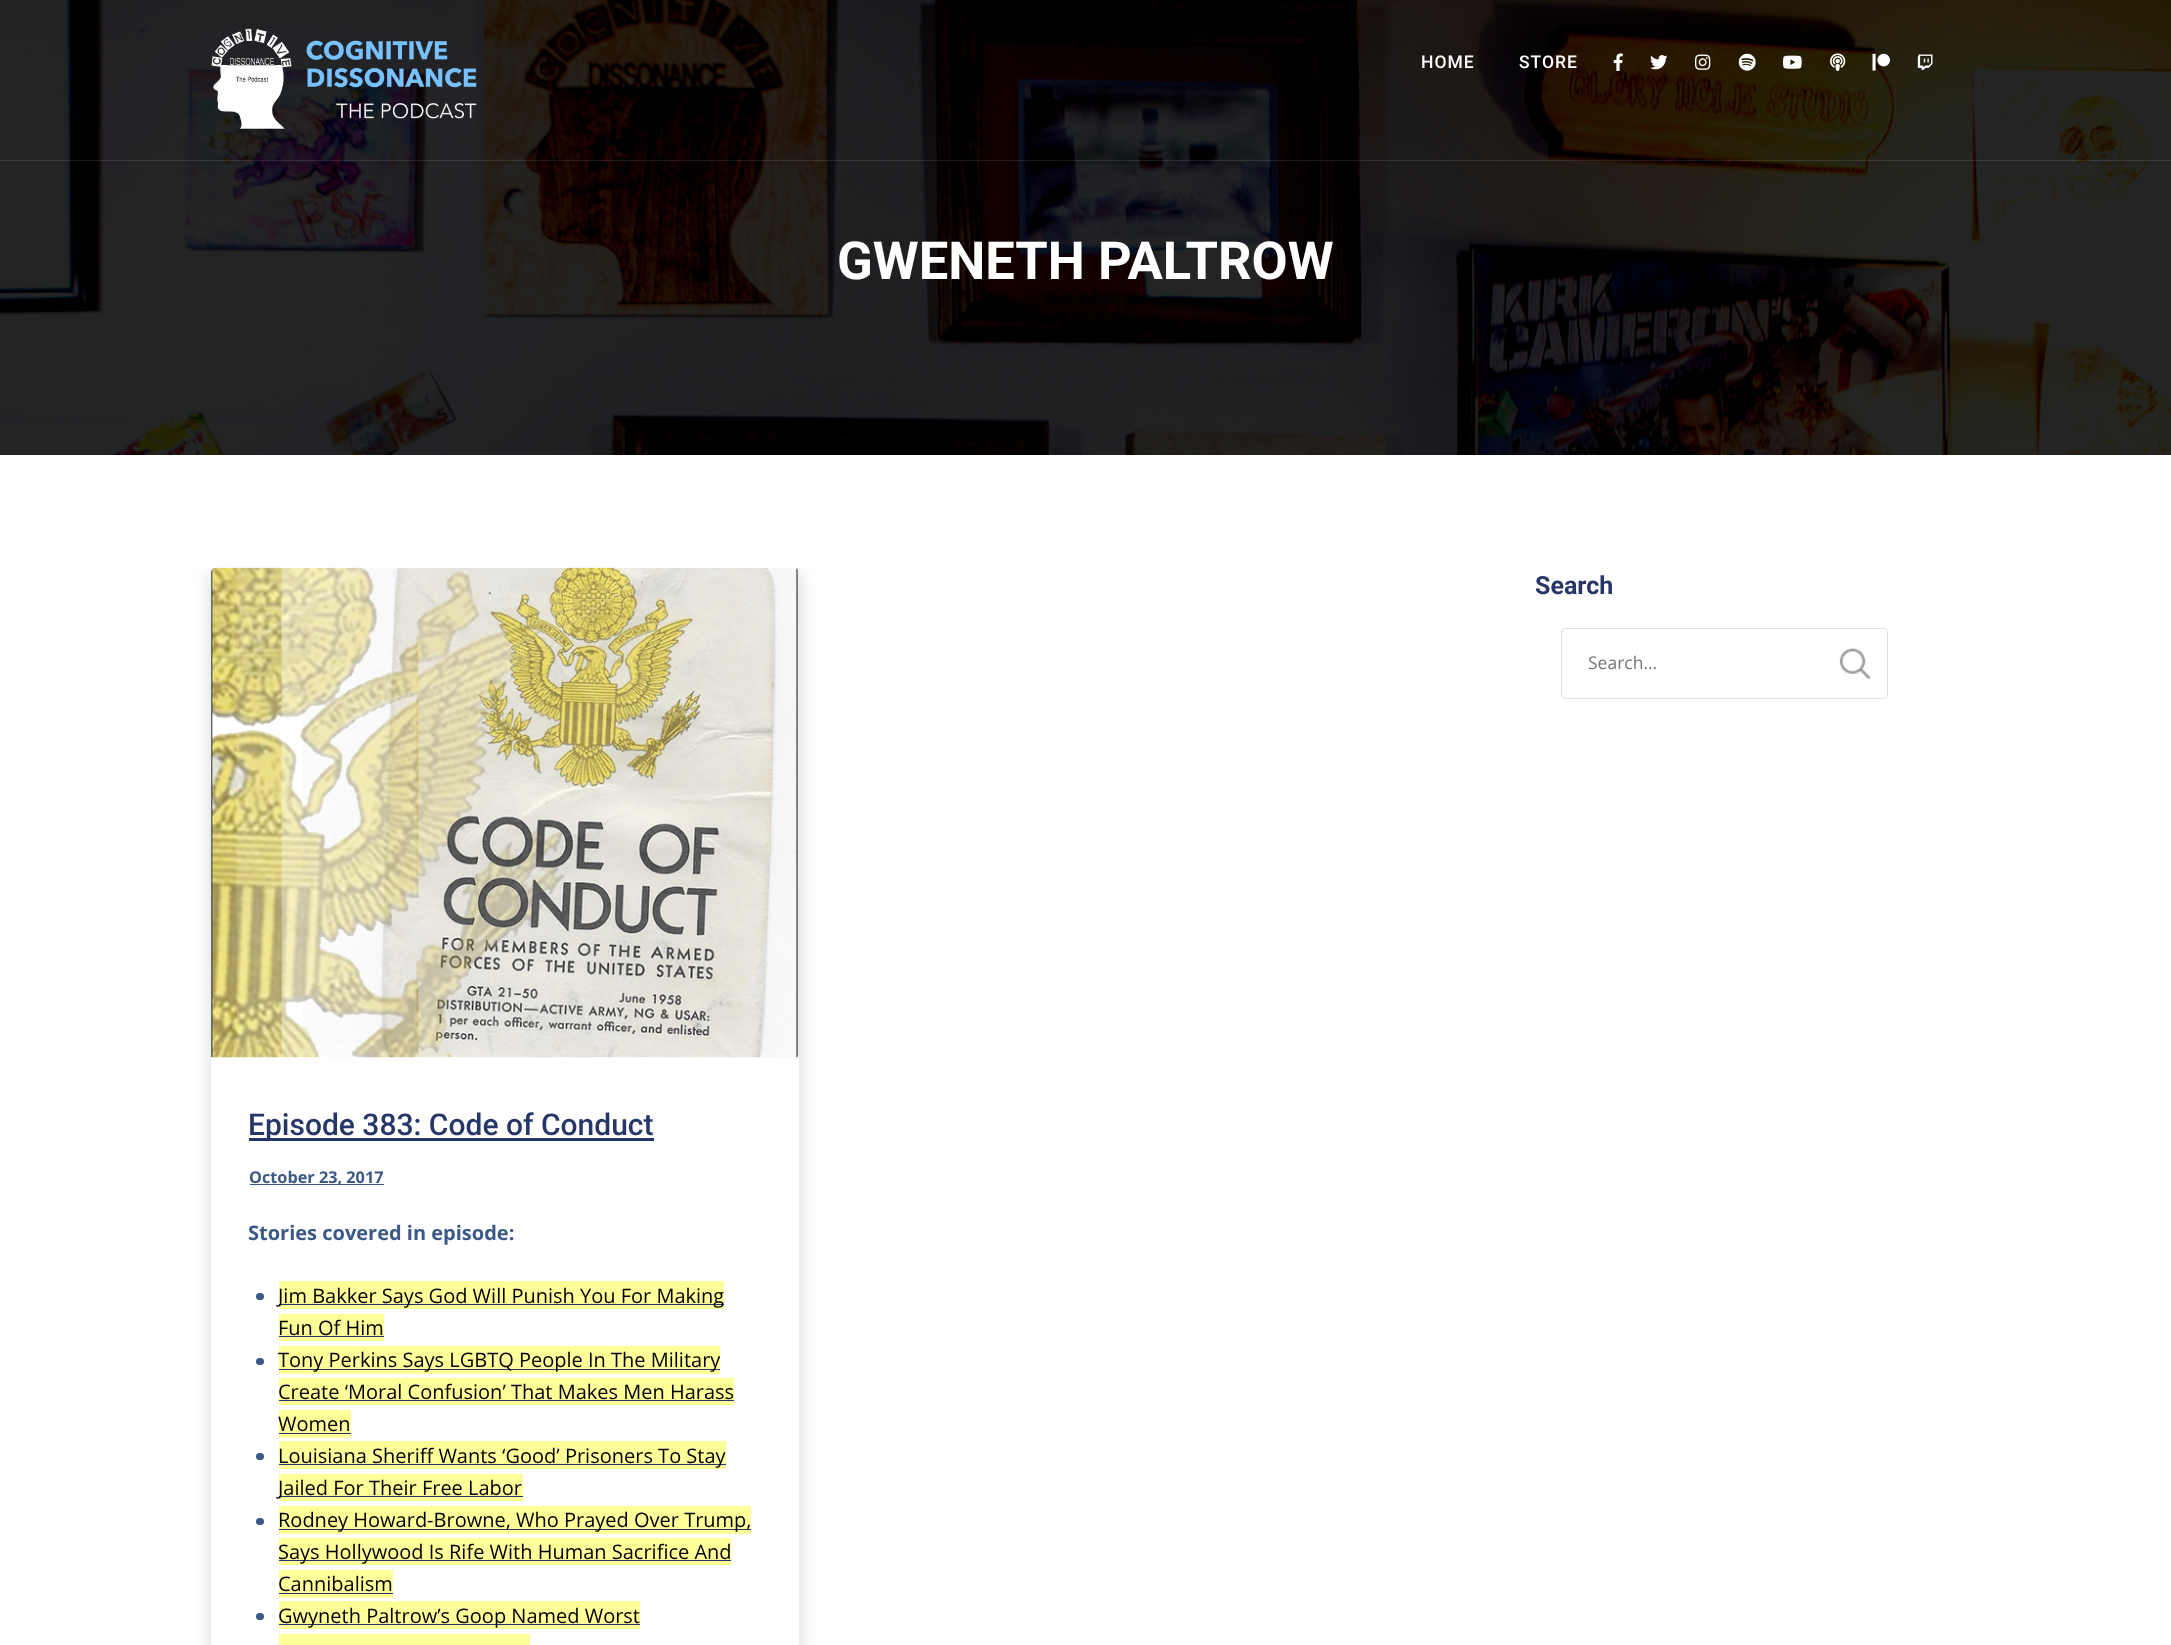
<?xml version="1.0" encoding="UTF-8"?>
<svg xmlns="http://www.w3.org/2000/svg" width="2171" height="1645">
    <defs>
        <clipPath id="clip1"><rect x="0" y="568" width="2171" height="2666"/></clipPath>
        <filter id="blur1" x="-50%" y="-200%" width="200%" height="500%"><feGaussianBlur stdDeviation="9.5"/></filter>
    </defs>
    <rect width="100%" height="100%" fill="#FFFFFF"/>
    <image x="0" y="0" width="2171" height="455" href="img_10.png"/>
    <image x="211" y="28" width="266" height="101" href="img_01.png"/>
    <text x="1421" y="68" font-family="Roboto" font-size="17.5" font-weight="500" letter-spacing="1" fill="#FFFFFF">HOME</text>
    <text x="1519" y="68" font-family="Roboto" font-size="17.5" font-weight="500" letter-spacing="1" fill="#FFFFFF">STORE</text>
    <image x="1613" y="53" width="10" height="18" href="img_02.png"/>
    <image x="1650" y="55" width="18" height="15" href="img_03.png"/>
    <image x="1695" y="54" width="16" height="16" href="img_04.png"/>
    <image x="1738" y="53" width="18" height="18" href="img_05.png"/>
    <image x="1783" y="55" width="19" height="14" href="img_06.png"/>
    <image x="1830" y="53" width="16" height="18" href="img_07.png"/>
    <image x="1872" y="53" width="18" height="18" href="img_08.png"/>
    <image x="1917" y="54" width="16" height="16" href="img_09.png"/>
    <rect x="0" y="160" width="2171" height="1" fill="#FFFFFF" fill-opacity="0.1"/>
    <text x="837" y="279" font-family="Roboto" font-size="52.5" font-weight="700" fill="#FFFFFF">GWENETH PALTROW</text>
    <text x="1535" y="594" font-family="Roboto" font-size="25" font-weight="700" fill="#263669">Search</text>
    <image x="1839" y="648" width="32" height="31" href="img_11.png"/>
    <rect x="1561.5" y="628.5" width="326" height="70" rx="3.5" fill="none" stroke="#E0E0E0"/>
    <text x="1588" y="669" font-family="Open Sans" font-size="17.5" fill="#757575">Search...</text>
    <g clip-path="url(#clip1)">
        <rect x="211" y="571" width="588" height="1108" rx="5" fill="#000000" fill-opacity="0.15" filter="url(#blur1)"/>
    </g>
    <rect x="211" y="1056" width="588" height="589" fill="#FFFFFF"/>
    <image x="211" y="567" width="587" height="491" href="img_12.png"/>
    <rect x="249" y="1138" width="405" height="3" fill="#263669"/>
    <text x="248" y="1135" font-family="Roboto" font-size="30" font-weight="500" fill="#263669">Episode 383: Code of Conduct</text>
    <rect x="250" y="1184" width="134" height="1" fill="#3B5987"/>
    <text x="249" y="1183" font-family="Open Sans" font-size="16.25" font-weight="700" fill="#3B5987">October 23, 2017</text>
    <text x="248" y="1240" font-family="Open Sans" font-size="20" font-weight="700" fill="#3B5987">Stories covered in episode:</text>
    <rect x="256" y="1293" width="8" height="7" rx="3.5" fill="#3B5987"/>
    <rect x="279" y="1281" width="445" height="28" fill="#FFFF99"/>
    <rect x="279" y="1304" width="445" height="1" fill="#263669"/>
    <text x="278" y="1303" font-family="Open Sans" font-size="20" fill="#000000">Jim Bakker Says God Will Punish You For Making</text>
    <rect x="279" y="1314" width="105" height="27" fill="#FFFF99"/>
    <text x="278" y="1335" font-family="Open Sans" font-size="20" fill="#000000">Fun Of Him</text>
    <rect x="279" y="1336" width="105" height="1" fill="#263669"/>
    <rect x="256" y="1358" width="8" height="7" rx="3.5" fill="#3B5987"/>
    <rect x="279" y="1346" width="441" height="28" fill="#FFFF99"/>
    <rect x="279" y="1369" width="441" height="1" fill="#263669"/>
    <text x="278" y="1367" font-family="Open Sans" font-size="20" fill="#000000">Tony Perkins Says LGBTQ People In The Military</text>
    <rect x="279" y="1378" width="455" height="27" fill="#FFFF99"/>
    <text x="278" y="1399" font-family="Open Sans" font-size="20" fill="#000000">Create ‘Moral Confusion’ That Makes Men Harass</text>
    <rect x="279" y="1400" width="455" height="1" fill="#263669"/>
    <rect x="279" y="1410" width="72" height="28" fill="#FFFF99"/>
    <text x="278" y="1431" font-family="Open Sans" font-size="20" fill="#000000">Women</text>
    <rect x="279" y="1433" width="72" height="1" fill="#263669"/>
    <rect x="256" y="1453" width="8" height="7" rx="3.5" fill="#3B5987"/>
    <rect x="279" y="1441" width="447" height="28" fill="#FFFF99"/>
    <rect x="279" y="1464" width="447" height="1" fill="#263669"/>
    <text x="278" y="1463" font-family="Open Sans" font-size="20" fill="#000000">Louisiana Sheriff Wants ‘Good’ Prisoners To Stay</text>
    <rect x="279" y="1474" width="244" height="27" fill="#FFFF99"/>
    <rect x="279" y="1496" width="244" height="1" fill="#263669"/>
    <text x="278" y="1495" font-family="Open Sans" font-size="20" fill="#000000">Jailed For Their Free Labor</text>
    <rect x="256" y="1518" width="8" height="7" rx="3.5" fill="#3B5987"/>
    <rect x="279" y="1506" width="472" height="28" fill="#FFFF99"/>
    <rect x="279" y="1529" width="472" height="1" fill="#263669"/>
    <text x="278" y="1527" font-family="Open Sans" font-size="20" fill="#000000">Rodney Howard-Browne, Who Prayed Over Trump,</text>
    <rect x="279" y="1538" width="452" height="27" fill="#FFFF99"/>
    <rect x="279" y="1560" width="452" height="1" fill="#263669"/>
    <text x="278" y="1559" font-family="Open Sans" font-size="20" fill="#000000">Says Hollywood Is Rife With Human Sacrifice And</text>
    <rect x="279" y="1570" width="114" height="28" fill="#FFFF99"/>
    <text x="278" y="1591" font-family="Open Sans" font-size="20" fill="#000000">Cannibalism</text>
    <rect x="279" y="1593" width="114" height="1" fill="#263669"/>
    <rect x="256" y="1613" width="8" height="7" rx="3.5" fill="#3B5987"/>
    <rect x="279" y="1601" width="361" height="28" fill="#FFFF99"/>
    <rect x="279" y="1624" width="361" height="1" fill="#263669"/>
    <text x="278" y="1623" font-family="Open Sans" font-size="20" fill="#000000">Gwyneth Paltrow’s Goop Named Worst</text>
    <rect x="279" y="1634" width="251" height="11" fill="#FFFF99"/>
</svg>
